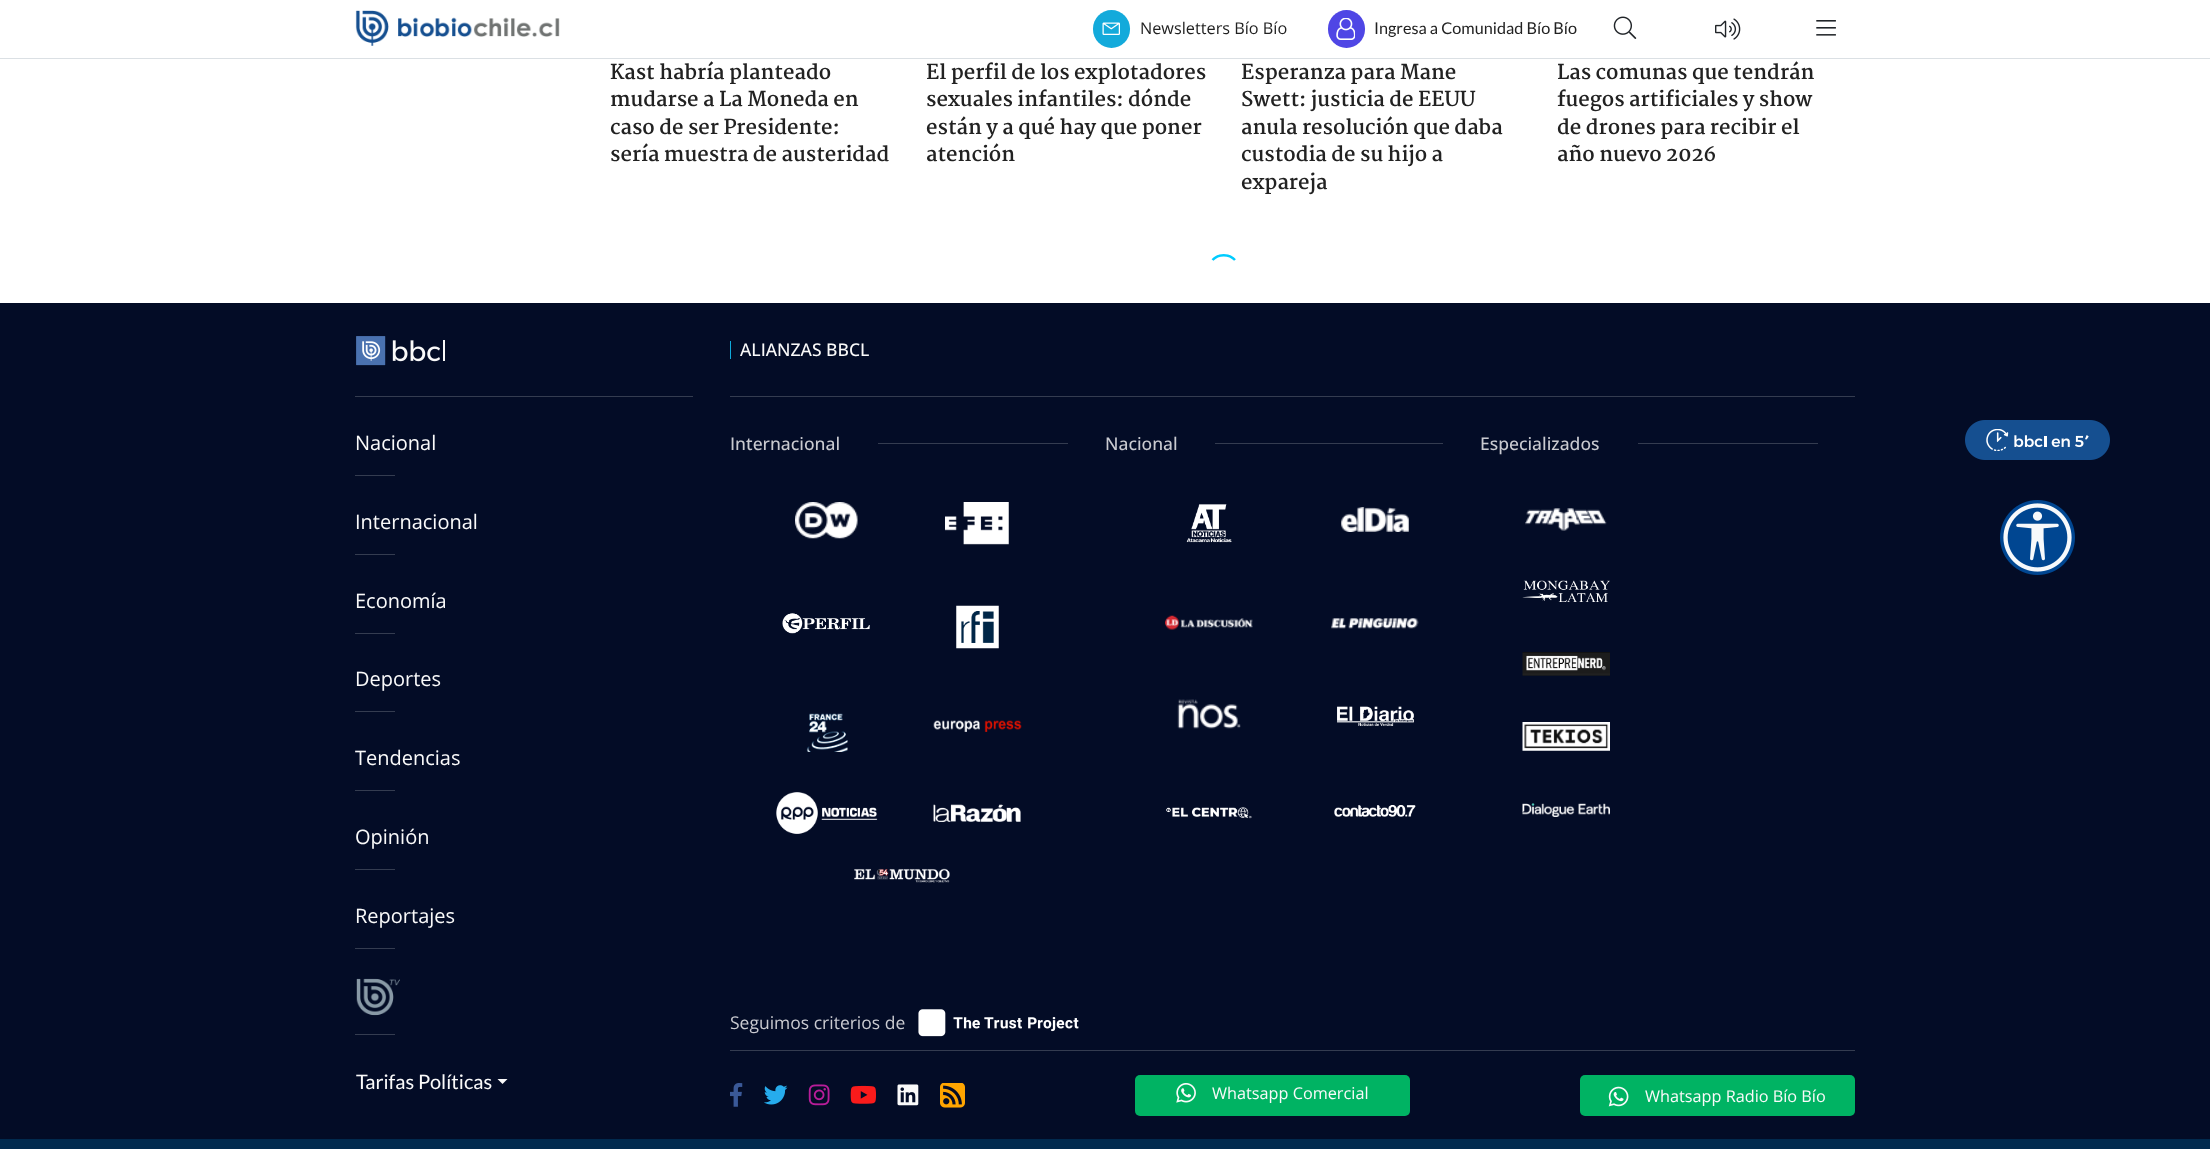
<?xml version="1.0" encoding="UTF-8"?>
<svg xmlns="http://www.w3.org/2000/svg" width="2210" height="1149">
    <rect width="100%" height="100%" fill="#FFFFFF"/>
    <rect x="0" y="58" width="2210" height="1" fill="#DBE0E4"/>
    <image x="355" y="10" width="205" height="36" href="img_01.png"/>
    <rect x="1093" y="10" width="37" height="38" rx="18.5" fill="#13AADB"/>
    <image x="1102" y="22" width="18" height="13" href="img_02.png"/>
    <text x="1140" y="34" font-family="Open Sans" font-size="16.25" fill="#222222">Newsletters Bío Bío</text>
    <rect x="1328" y="10" width="37" height="38" rx="18.5" fill="#4F46E5"/>
    <image x="1336" y="18" width="19" height="22" href="img_03.png"/>
    <text x="1374" y="34" font-family="Lato" font-size="16.25" fill="#222222">Ingresa a Comunidad Bío Bío</text>
    <image x="1613" y="16" width="24" height="23" href="img_04.png"/>
    <image x="1715" y="18" width="26" height="22" href="img_05.png"/>
    <image x="1816" y="20" width="20" height="16" href="img_06.png"/>
    <rect x="0" y="303" width="2210" height="836" fill="#030C26"/>
    <image x="1965" y="420" width="145" height="40" href="img_07.png"/>
    <image x="2000" y="500" width="75" height="75" href="img_08.png"/>
    <text font-family="Martel" font-size="20" font-weight="700" fill="#222222">
        <tspan x="610" y="79">Kast habría planteado</tspan>
        <tspan x="610" y="106">mudarse a La Moneda en</tspan>
        <tspan x="610" y="134">caso de ser Presidente:</tspan>
        <tspan x="610" y="161">sería muestra de austeridad</tspan>
    </text>
    <text font-family="Martel" font-size="20" font-weight="700" fill="#222222">
        <tspan x="926" y="79">El perfil de los explotadores</tspan>
        <tspan x="926" y="106">sexuales infantiles: dónde</tspan>
        <tspan x="926" y="134">están y a qué hay que poner</tspan>
        <tspan x="926" y="161">atención</tspan>
    </text>
    <text font-family="Martel" font-size="20" font-weight="700" fill="#222222">
        <tspan x="1241" y="79">Esperanza para Mane</tspan>
        <tspan x="1241" y="106">Swett: justicia de EEUU</tspan>
        <tspan x="1241" y="134">anula resolución que daba</tspan>
        <tspan x="1241" y="161">custodia de su hijo a</tspan>
        <tspan x="1241" y="189">expareja</tspan>
    </text>
    <text font-family="Martel" font-size="20" font-weight="700" fill="#222222">
        <tspan x="1557" y="79">Las comunas que tendrán</tspan>
        <tspan x="1557" y="106">fuegos artificiales y show</tspan>
        <tspan x="1557" y="134">de drones para recibir el</tspan>
        <tspan x="1557" y="161">año nuevo 2026</tspan>
    </text>
    <path d="M 1212.5 260 C 1218.5 253.5 1229 253.5 1235 260 M 1212.5 260 C 1218.5 253.5 1229 253.5 1235 260" fill="none" stroke="#00CCFF" stroke-width="2.5"/>
    <rect x="355" y="396" width="338" height="1" fill="#343C50"/>
    <image x="356" y="336" width="89" height="30" href="img_09.png"/>
    <rect x="355" y="475" width="40" height="1" fill="#343C50"/>
    <text x="355" y="450" font-family="Open Sans" font-size="20" fill="#FAFAFA">Nacional</text>
    <rect x="355" y="554" width="40" height="1" fill="#343C50"/>
    <text x="355" y="529" font-family="Open Sans" font-size="20" fill="#FAFAFA">Internacional</text>
    <rect x="355" y="633" width="40" height="1" fill="#343C50"/>
    <text x="355" y="608" font-family="Open Sans" font-size="20" fill="#FAFAFA">Economía</text>
    <rect x="355" y="711" width="40" height="1" fill="#343C50"/>
    <text x="355" y="686" font-family="Open Sans" font-size="20" fill="#FAFAFA">Deportes</text>
    <rect x="355" y="790" width="40" height="1" fill="#343C50"/>
    <text x="355" y="765" font-family="Open Sans" font-size="20" fill="#FAFAFA">Tendencias</text>
    <rect x="355" y="869" width="40" height="1" fill="#343C50"/>
    <text x="355" y="844" font-family="Open Sans" font-size="20" fill="#FAFAFA">Opinión</text>
    <rect x="355" y="948" width="40" height="1" fill="#343C50"/>
    <text x="355" y="923" font-family="Open Sans" font-size="20" fill="#FAFAFA">Reportajes</text>
    <rect x="355" y="1034" width="40" height="1" fill="#343C50"/>
    <image x="356" y="978" width="44" height="38" href="img_10.png"/>
    <text x="356" y="1089" font-family="Lato" font-size="20" fill="#FAFAFA">Tarifas Políticas</text>
    <path d="M 497.5 1079 H 507.5 L 502.5 1084 Z" fill="#FAFAFA"/>
    <rect x="730" y="396" width="1125" height="1" fill="#343C50"/>
    <rect x="730" y="341" width="1" height="18" fill="#0FAADB"/>
    <text x="740" y="356" font-family="Open Sans" font-size="17.5" font-weight="500" fill="#FAFAFA">ALIANZAS BBCL</text>
    <text x="730" y="450" font-family="Open Sans" font-size="17.5" font-weight="500" fill="#C9CAD0">Internacional</text>
    <rect x="878" y="443" width="190" height="1" fill="#343C50"/>
    <image x="795" y="502" width="63" height="37" href="img_11.png"/>
    <image x="945" y="502" width="64" height="43" href="img_12.png"/>
    <image x="782" y="613" width="88" height="21" href="img_13.png"/>
    <image x="956" y="605" width="43" height="44" href="img_14.png"/>
    <image x="806" y="713" width="42" height="39" href="img_15.png"/>
    <image x="933" y="720" width="89" height="12" href="img_16.png"/>
    <image x="776" y="792" width="102" height="42" href="img_17.png"/>
    <image x="933" y="804" width="88" height="18" href="img_18.png"/>
    <image x="854" y="868" width="96" height="15" href="img_19.png"/>
    <text x="1105" y="450" font-family="Open Sans" font-size="17.5" font-weight="500" fill="#C9CAD0">Nacional</text>
    <rect x="1215" y="443" width="228" height="1" fill="#343C50"/>
    <image x="1186" y="504" width="46" height="39" href="img_20.png"/>
    <image x="1341" y="507" width="68" height="25" href="img_21.png"/>
    <image x="1165" y="615" width="88" height="15" href="img_22.png"/>
    <image x="1331" y="618" width="88" height="11" href="img_23.png"/>
    <image x="1177" y="699" width="64" height="30" href="img_24.png"/>
    <image x="1337" y="706" width="77" height="20" href="img_25.png"/>
    <image x="1166" y="807" width="86" height="12" href="img_26.png"/>
    <image x="1334" y="805" width="82" height="12" href="img_27.png"/>
    <text x="1480" y="450" font-family="Open Sans" font-size="17.5" font-weight="500" fill="#C9CAD0">Especializados</text>
    <rect x="1638" y="443" width="180" height="1" fill="#343C50"/>
    <image x="1525" y="508" width="82" height="23" href="img_28.png"/>
    <image x="1522" y="580" width="88" height="22" href="img_29.png"/>
    <image x="1522" y="652" width="88" height="24" href="img_30.png"/>
    <image x="1522" y="722" width="88" height="29" href="img_31.png"/>
    <image x="1522" y="803" width="88" height="14" href="img_32.png"/>
    <text x="730" y="1029" font-family="Open Sans" font-size="17.5" fill="#C9CAD0">Seguimos criterios de</text>
    <image x="918" y="1009" width="161" height="28" href="img_33.png"/>
    <rect x="730" y="1050" width="1125" height="1" fill="#343C50"/>
    <image x="730" y="1083" width="13" height="24" href="img_34.png"/>
    <image x="764" y="1085" width="24" height="20" href="img_35.png"/>
    <image x="808" y="1084" width="22" height="22" href="img_36.png"/>
    <image x="850" y="1085" width="26" height="19" href="img_37.png"/>
    <image x="897" y="1084" width="22" height="22" href="img_38.png"/>
    <image x="940" y="1083" width="25" height="25" href="img_39.png"/>
    <rect x="1135" y="1075" width="275" height="41" rx="5" fill="#00B363"/>
    <image x="1176" y="1083" width="20" height="20" href="img_40.png"/>
    <text x="1212" y="1099" font-family="Open Sans" font-size="16.25" fill="#FAFAFA">Whatsapp Comercial</text>
    <rect x="1580" y="1075" width="275" height="41" rx="5" fill="#00B363"/>
    <image x="1608" y="1086" width="21" height="21" href="img_41.png"/>
    <text x="1645" y="1102" font-family="Open Sans" font-size="16.25" fill="#FAFAFA">Whatsapp Radio Bío Bío</text>
    <rect x="0" y="1139" width="2210" height="10" fill="#012A4E"/>
</svg>
